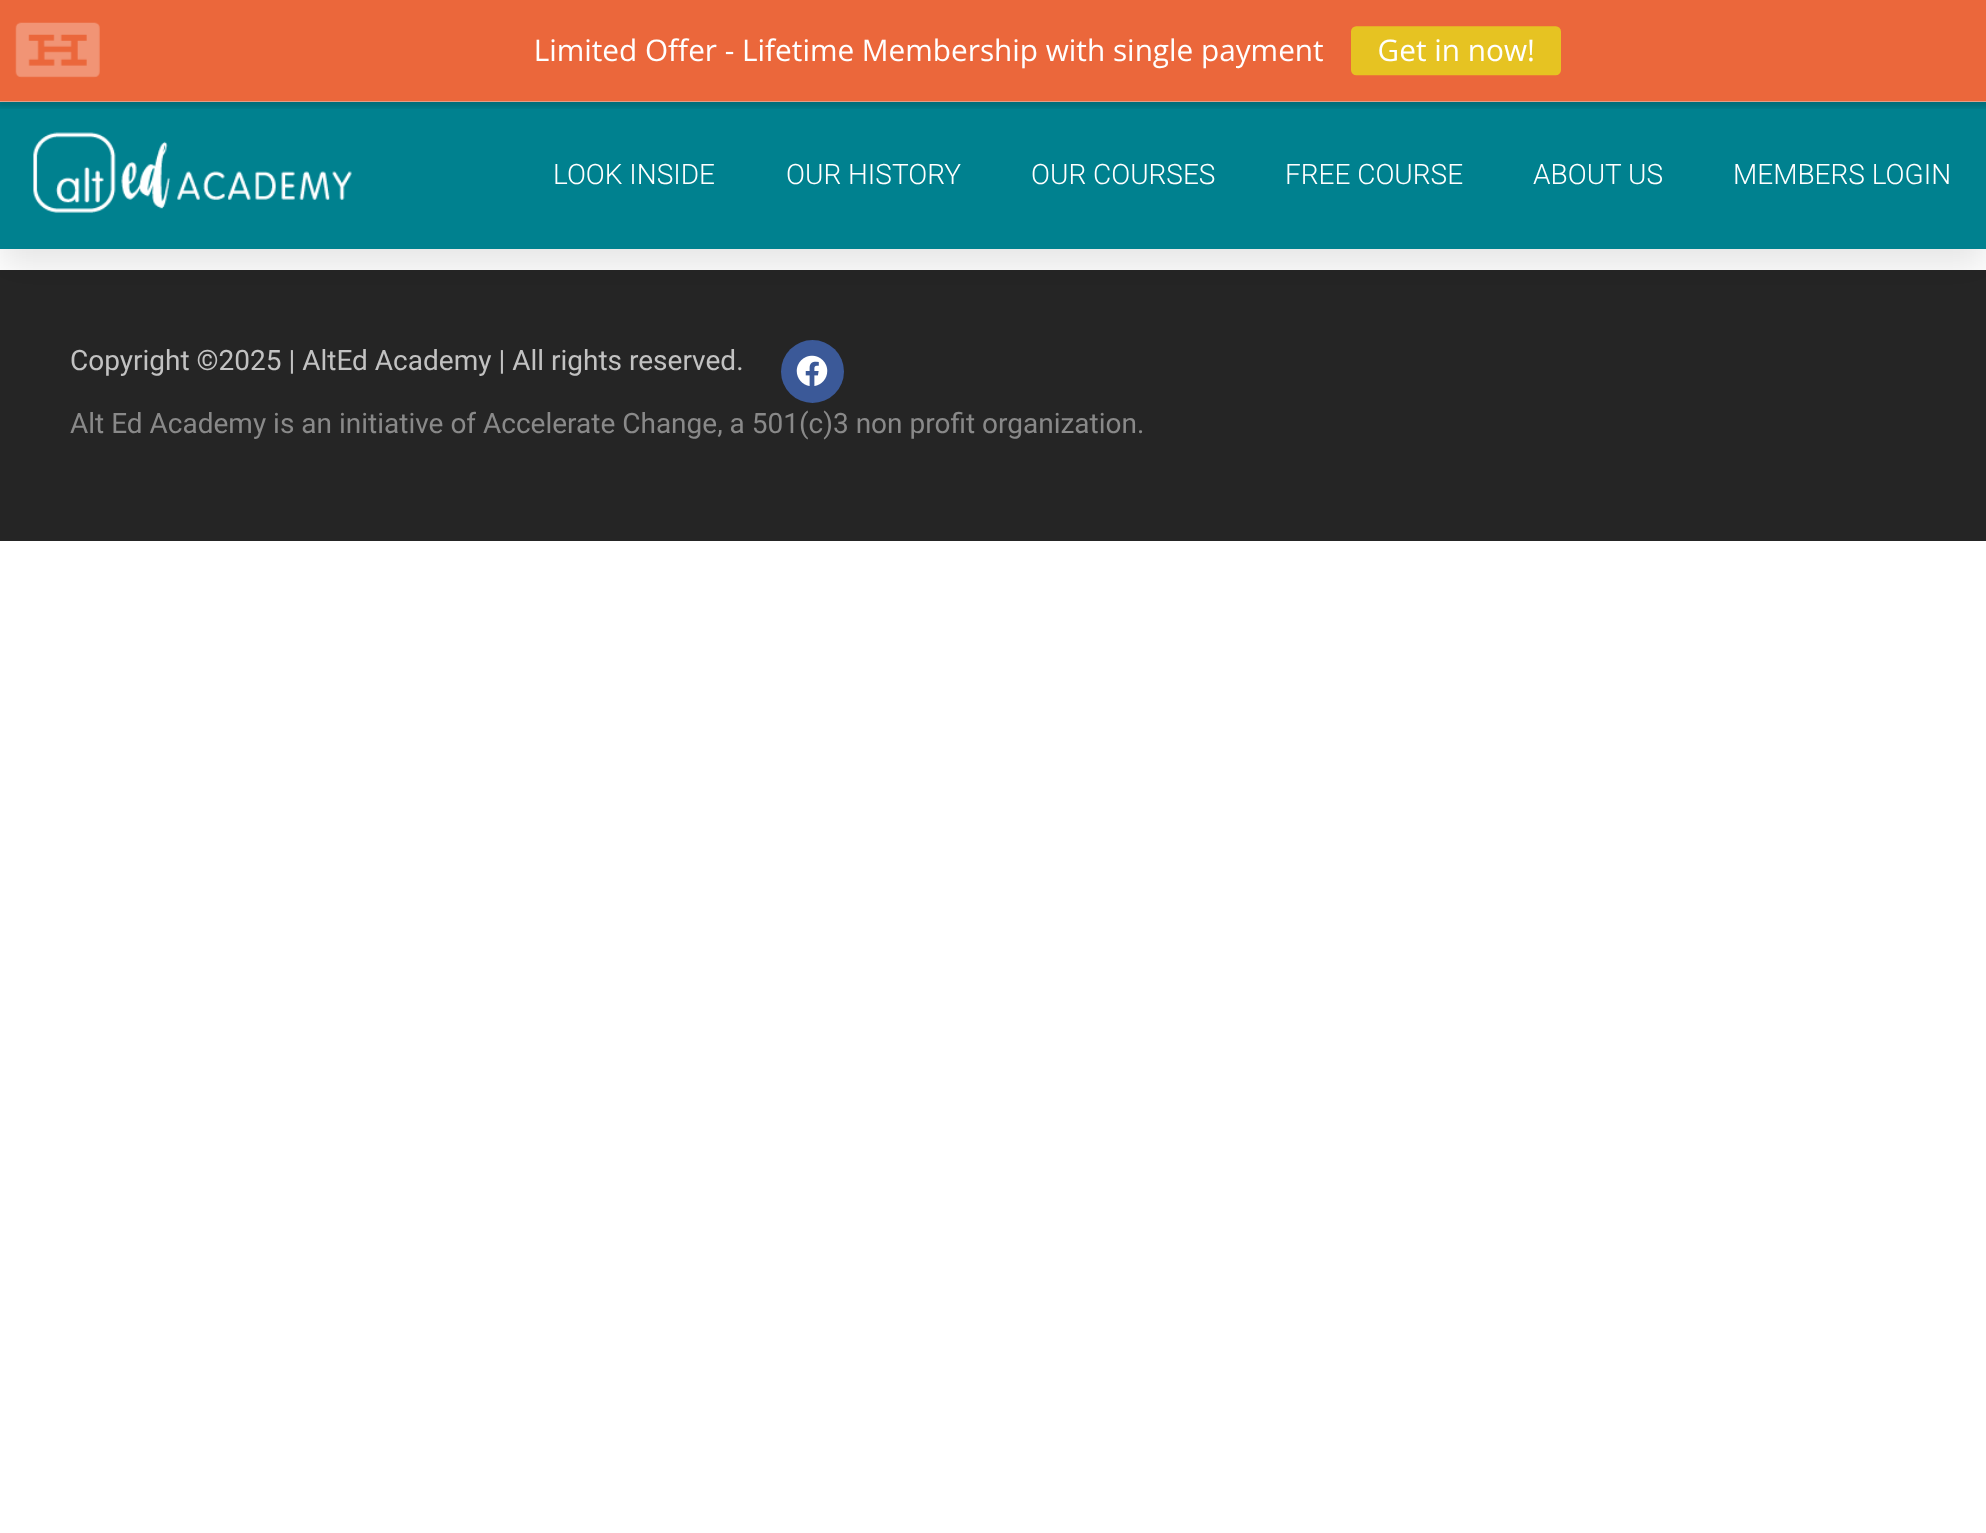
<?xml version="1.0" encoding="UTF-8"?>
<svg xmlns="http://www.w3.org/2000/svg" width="1986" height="1533">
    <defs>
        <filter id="blur1" x="-50%" y="-200%" width="200%" height="500%"><feGaussianBlur stdDeviation="17.5"/></filter>
        <linearGradient id="g1" gradientUnits="userSpaceOnUse" x1="374" y1="-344" x2="1612" y2="694"><stop offset="1" stop-color="#00818F"/><stop offset="1" stop-color="#069BAB"/></linearGradient>
    </defs>
    <rect width="100%" height="100%" fill="#FFFFFF"/>
    <rect x="0" y="270" width="1986" height="271" fill="#252525"/>
    <rect x="0" y="119" width="1986" height="147" fill="#000000" fill-opacity="0.1" filter="url(#blur1)"/>
    <rect x="0" y="102" width="1986" height="147" fill="url(#g1)"/>
    <image x="0" y="0" width="1986" height="109" href="img_01.png"/>
    <image x="33" y="132" width="319" height="81" href="img_02.png"/>
    <text x="553" y="184" font-family="Roboto" font-size="28" font-weight="300" fill="#FFFFFF">LOOK INSIDE</text>
    <text x="786" y="184" font-family="Roboto" font-size="28" font-weight="300" fill="#FFFFFF">OUR HISTORY</text>
    <text x="1031" y="184" font-family="Roboto" font-size="28" font-weight="300" fill="#FFFFFF">OUR COURSES</text>
    <text x="1285" y="184" font-family="Roboto" font-size="28" font-weight="300" fill="#FFFFFF">FREE COURSE</text>
    <text x="1533" y="184" font-family="Roboto" font-size="28" font-weight="300" fill="#FFFFFF">ABOUT US</text>
    <text x="1733" y="184" font-family="Roboto" font-size="28" font-weight="300" fill="#FFFFFF">MEMBERS LOGIN</text>
    <text x="70" y="370" font-family="Roboto" font-size="28" fill="#C2C2C2">Copyright ©2025 | AltEd Academy | All rights reserved.</text>
    <circle cx="812.5" cy="371.5" r="31.5" fill="#3B5998"/>
    <image x="796" y="355" width="32" height="31" href="img_03.png"/>
    <text x="70" y="433" font-family="Roboto" font-size="28" fill="#898989">Alt Ed Academy is an initiative of Accelerate Change, a 501(c)3 non profit organization.</text>
</svg>
